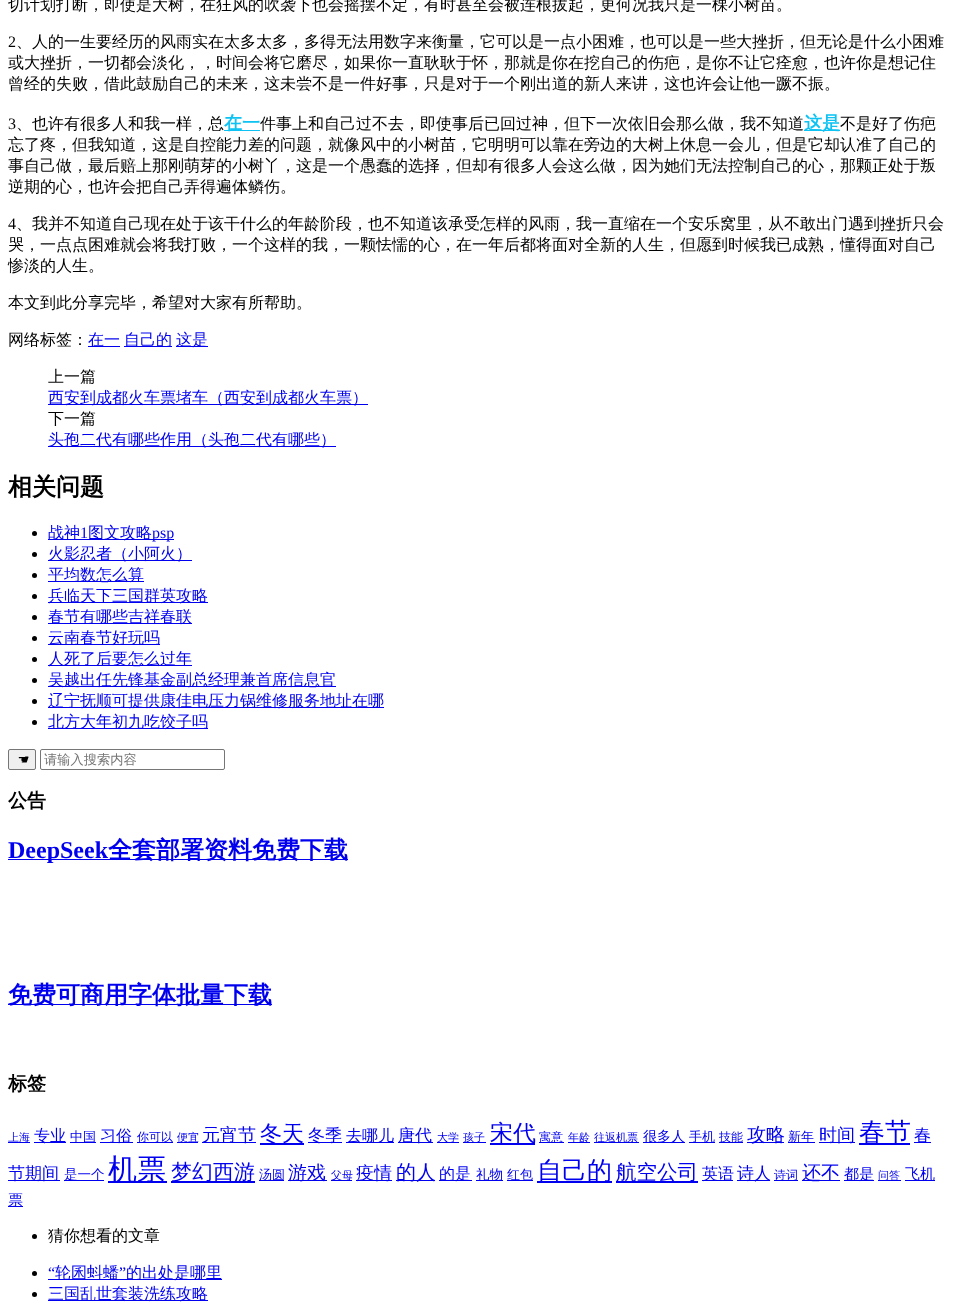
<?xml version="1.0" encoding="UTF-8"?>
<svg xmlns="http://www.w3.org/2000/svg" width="956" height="1307">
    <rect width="100%" height="100%" fill="#FFFFFF"/>
    <text x="8" y="10" font-family="WenQuanYi Zen Hei" font-size="16" font-weight="500" fill="#000000">切计划打断，即使是大树，在狂风的吹袭下也会摇摆不定，有时甚至会被连根拔起，更何况我只是一棵小树苗。</text>
    <text x="8" y="47" font-family="Liberation Serif" font-size="16" fill="#000000">2</text>
    <text x="16" y="47" font-family="WenQuanYi Zen Hei" font-size="16" font-weight="500" fill="#000000">、人的一生要经历的风雨实在太多太多，多得无法用数字来衡量，它可以是一点小困难，也可以是一些大挫折，但无论是什么小困难</text>
    <text font-family="WenQuanYi Zen Hei" font-size="16" font-weight="500" fill="#000000">
        <tspan x="8" y="68">或大挫折，一切都会淡化，，时间会将它磨尽，如果你一直耿耿于怀，那就是你在挖自己的伤疤，是你不让它痊愈，也许你是想记住</tspan>
        <tspan x="8" y="89">曾经的失败，借此鼓励自己的未来，这未尝不是一件好事，只是对于一个刚出道的新人来讲，这也许会让他一蹶不振。</tspan>
    </text>
    <text x="8" y="129" font-family="Liberation Serif" font-size="16" fill="#000000">3</text>
    <text x="16" y="129" font-family="WenQuanYi Zen Hei" font-size="16" font-weight="500" fill="#000000">、也许有很多人和我一样，总</text>
    <rect x="224" y="130" width="36" height="1" fill="#0EC3F3"/>
    <text x="224" y="129" font-family="WenQuanYi Zen Hei" font-size="18" font-weight="700" fill="#0EC3F3">在一</text>
    <text x="260" y="129" font-family="WenQuanYi Zen Hei" font-size="16" font-weight="500" fill="#000000">件事上和自己过不去，即使事后已回过神，但下一次依旧会那么做，我不知道</text>
    <rect x="804" y="130" width="36" height="1" fill="#0EC3F3"/>
    <text x="804" y="129" font-family="WenQuanYi Zen Hei" font-size="18" font-weight="700" fill="#0EC3F3">这是</text>
    <text x="840" y="129" font-family="WenQuanYi Zen Hei" font-size="16" font-weight="500" fill="#000000">不是好了伤疤</text>
    <text font-family="WenQuanYi Zen Hei" font-size="16" font-weight="500" fill="#000000">
        <tspan x="8" y="150">忘了疼，但我知道，这是自控能力差的问题，就像风中的小树苗，它明明可以靠在旁边的大树上休息一会儿，但是它却认准了自己的</tspan>
        <tspan x="8" y="171">事自己做，最后赔上那刚萌芽的小树丫，这是一个愚蠢的选择，但却有很多人会这么做，因为她们无法控制自己的心，那颗正处于叛</tspan>
        <tspan x="8" y="192">逆期的心，也许会把自己弄得遍体鳞伤。</tspan>
    </text>
    <text x="8" y="229" font-family="Liberation Serif" font-size="16" fill="#000000">4</text>
    <text x="16" y="229" font-family="WenQuanYi Zen Hei" font-size="16" font-weight="500" fill="#000000">、我并不知道自己现在处于该干什么的年龄阶段，也不知道该承受怎样的风雨，我一直缩在一个安乐窝里，从不敢出门遇到挫折只会</text>
    <text font-family="WenQuanYi Zen Hei" font-size="16" font-weight="500" fill="#000000">
        <tspan x="8" y="250">哭，一点点困难就会将我打败，一个这样的我，一颗怯懦的心，在一年后都将面对全新的人生，但愿到时候我已成熟，懂得面对自己</tspan>
        <tspan x="8" y="271">惨淡的人生。</tspan>
    </text>
    <text x="8" y="308" font-family="WenQuanYi Zen Hei" font-size="16" font-weight="500" fill="#000000">本文到此分享完毕，希望对大家有所帮助。</text>
    <text x="8" y="345" font-family="WenQuanYi Zen Hei" font-size="16" font-weight="500" fill="#000000">网络标签：</text>
    <rect x="88" y="346" width="32" height="1" fill="#0000EE"/>
    <text x="88" y="345" font-family="WenQuanYi Zen Hei" font-size="16" font-weight="500" fill="#0000EE">在一</text>
    <rect x="124" y="346" width="48" height="1" fill="#0000EE"/>
    <text x="124" y="345" font-family="WenQuanYi Zen Hei" font-size="16" font-weight="500" fill="#0000EE">自己的</text>
    <rect x="176" y="346" width="32" height="1" fill="#0000EE"/>
    <text x="176" y="345" font-family="WenQuanYi Zen Hei" font-size="16" font-weight="500" fill="#0000EE">这是</text>
    <text x="48" y="382" font-family="WenQuanYi Zen Hei" font-size="16" font-weight="500" fill="#000000">上一篇</text>
    <rect x="48" y="404" width="320" height="1" fill="#0000EE"/>
    <text x="48" y="403" font-family="WenQuanYi Zen Hei" font-size="16" font-weight="500" fill="#0000EE">西安到成都火车票堵车（西安到成都火车票）</text>
    <text x="48" y="424" font-family="WenQuanYi Zen Hei" font-size="16" font-weight="500" fill="#000000">下一篇</text>
    <rect x="48" y="446" width="288" height="1" fill="#0000EE"/>
    <text x="48" y="445" font-family="WenQuanYi Zen Hei" font-size="16" font-weight="500" fill="#0000EE">头孢二代有哪些作用（头孢二代有哪些）</text>
    <text x="8" y="495" font-family="WenQuanYi Zen Hei" font-size="24" font-weight="700" fill="#000000">相关问题</text>
    <circle cx="34.5" cy="533.5" r="2.5" fill="#000000"/>
    <rect x="48" y="539" width="126" height="1" fill="#0000EE"/>
    <text x="48" y="538" font-family="WenQuanYi Zen Hei" font-size="16" font-weight="500" fill="#0000EE">战神</text>
    <text x="80" y="538" font-family="Liberation Serif" font-size="16" fill="#0000EE">1</text>
    <text x="88" y="538" font-family="WenQuanYi Zen Hei" font-size="16" font-weight="500" fill="#0000EE">图文攻略</text>
    <text x="152" y="538" font-family="Liberation Serif" font-size="16" fill="#0000EE">psp</text>
    <circle cx="34.5" cy="554.5" r="2.5" fill="#000000"/>
    <rect x="48" y="560" width="144" height="1" fill="#0000EE"/>
    <text x="48" y="559" font-family="WenQuanYi Zen Hei" font-size="16" font-weight="500" fill="#0000EE">火影忍者（小阿火）</text>
    <circle cx="34.5" cy="575.5" r="2.5" fill="#000000"/>
    <rect x="48" y="581" width="96" height="1" fill="#0000EE"/>
    <text x="48" y="580" font-family="WenQuanYi Zen Hei" font-size="16" font-weight="500" fill="#0000EE">平均数怎么算</text>
    <circle cx="34.5" cy="596.5" r="2.5" fill="#000000"/>
    <rect x="48" y="602" width="160" height="1" fill="#0000EE"/>
    <text x="48" y="601" font-family="WenQuanYi Zen Hei" font-size="16" font-weight="500" fill="#0000EE">兵临天下三国群英攻略</text>
    <circle cx="34.5" cy="617.5" r="2.5" fill="#000000"/>
    <rect x="48" y="623" width="144" height="1" fill="#0000EE"/>
    <text x="48" y="622" font-family="WenQuanYi Zen Hei" font-size="16" font-weight="500" fill="#0000EE">春节有哪些吉祥春联</text>
    <circle cx="34.5" cy="638.5" r="2.5" fill="#000000"/>
    <rect x="48" y="644" width="112" height="1" fill="#0000EE"/>
    <text x="48" y="643" font-family="WenQuanYi Zen Hei" font-size="16" font-weight="500" fill="#0000EE">云南春节好玩吗</text>
    <circle cx="34.5" cy="659.5" r="2.5" fill="#000000"/>
    <rect x="48" y="665" width="144" height="1" fill="#0000EE"/>
    <text x="48" y="664" font-family="WenQuanYi Zen Hei" font-size="16" font-weight="500" fill="#0000EE">人死了后要怎么过年</text>
    <circle cx="34.5" cy="680.5" r="2.5" fill="#000000"/>
    <rect x="48" y="686" width="288" height="1" fill="#0000EE"/>
    <text x="48" y="685" font-family="WenQuanYi Zen Hei" font-size="16" font-weight="500" fill="#0000EE">吴越出任先锋基金副总经理兼首席信息官</text>
    <circle cx="34.5" cy="701.5" r="2.5" fill="#000000"/>
    <rect x="48" y="707" width="336" height="1" fill="#0000EE"/>
    <text x="48" y="706" font-family="WenQuanYi Zen Hei" font-size="16" font-weight="500" fill="#0000EE">辽宁抚顺可提供康佳电压力锅维修服务地址在哪</text>
    <circle cx="34.5" cy="722.5" r="2.5" fill="#000000"/>
    <rect x="48" y="728" width="160" height="1" fill="#0000EE"/>
    <text x="48" y="727" font-family="WenQuanYi Zen Hei" font-size="16" font-weight="500" fill="#0000EE">北方大年初九吃饺子吗</text>
    <rect x="8.5" y="749.5" width="27" height="20" rx="1.5" fill="#EFEFEF" stroke="#767676"/>
    <text x="16" y="764" font-family="DejaVu Sans" font-size="13.25" font-style="italic" fill="#000000">☚</text>
    <rect x="40.5" y="749.5" width="184" height="20" rx="1.5" fill="none" stroke="#767676"/>
    <text x="44" y="764" font-family="WenQuanYi Zen Hei" font-size="13.25" font-weight="500" fill="#757575">请输入搜索内容</text>
    <text x="8" y="807" font-family="WenQuanYi Zen Hei" font-size="19" font-weight="700" fill="#000000">公告</text>
    <rect x="8" y="859" width="340" height="1" fill="#0000EE"/>
    <text x="8" y="858" font-family="Liberation Serif" font-size="24" font-weight="700" fill="#0000EE">DeepSeek</text>
    <text x="108" y="858" font-family="WenQuanYi Zen Hei" font-size="24" font-weight="700" fill="#0000EE">全套部署资料免费下载</text>
    <rect x="8" y="1004" width="264" height="1" fill="#0000EE"/>
    <text x="8" y="1003" font-family="WenQuanYi Zen Hei" font-size="24" font-weight="700" fill="#0000EE">免费可商用字体批量下载</text>
    <text x="8" y="1090" font-family="WenQuanYi Zen Hei" font-size="19" font-weight="700" fill="#000000">标签</text>
    <rect x="8" y="1142" width="22" height="1" fill="#0000EE"/>
    <text x="8" y="1141" font-family="WenQuanYi Zen Hei" font-size="11" font-weight="500" fill="#0000EE">上海</text>
    <rect x="34" y="1142" width="32" height="1" fill="#0000EE"/>
    <text x="34" y="1141" font-family="WenQuanYi Zen Hei" font-size="16" font-weight="500" fill="#0000EE">专业</text>
    <rect x="70" y="1142" width="26" height="1" fill="#0000EE"/>
    <text x="70" y="1141" font-family="WenQuanYi Zen Hei" font-size="13" font-weight="500" fill="#0000EE">中国</text>
    <rect x="100" y="1142" width="33" height="1" fill="#0000EE"/>
    <text x="100" y="1141" font-family="WenQuanYi Zen Hei" font-size="16" font-weight="500" fill="#0000EE">习俗</text>
    <rect x="137" y="1142" width="36" height="1" fill="#0000EE"/>
    <text x="137" y="1141" font-family="WenQuanYi Zen Hei" font-size="12" font-weight="500" fill="#0000EE">你可以</text>
    <rect x="177" y="1142" width="21" height="1" fill="#0000EE"/>
    <text x="177" y="1141" font-family="WenQuanYi Zen Hei" font-size="11" font-weight="500" fill="#0000EE">便宜</text>
    <rect x="202" y="1142" width="54" height="1" fill="#0000EE"/>
    <text x="202" y="1141" font-family="WenQuanYi Zen Hei" font-size="18" font-weight="500" fill="#0000EE">元宵节</text>
    <rect x="260" y="1143" width="44" height="2" fill="#0000EE"/>
    <text x="260" y="1141" font-family="WenQuanYi Zen Hei" font-size="22" font-weight="500" fill="#0000EE">冬天</text>
    <rect x="308" y="1142" width="34" height="1" fill="#0000EE"/>
    <text x="308" y="1141" font-family="WenQuanYi Zen Hei" font-size="17" font-weight="500" fill="#0000EE">冬季</text>
    <rect x="346" y="1142" width="48" height="1" fill="#0000EE"/>
    <text x="346" y="1141" font-family="WenQuanYi Zen Hei" font-size="16" font-weight="500" fill="#0000EE">去哪儿</text>
    <rect x="398" y="1142" width="35" height="1" fill="#0000EE"/>
    <text x="398" y="1141" font-family="WenQuanYi Zen Hei" font-size="17" font-weight="500" fill="#0000EE">唐代</text>
    <rect x="437" y="1142" width="22" height="1" fill="#0000EE"/>
    <text x="437" y="1141" font-family="WenQuanYi Zen Hei" font-size="11" font-weight="500" fill="#0000EE">大学</text>
    <rect x="463" y="1142" width="23" height="1" fill="#0000EE"/>
    <text x="463" y="1141" font-family="WenQuanYi Zen Hei" font-size="11" font-weight="500" fill="#0000EE">孩子</text>
    <rect x="490" y="1143" width="45" height="2" fill="#0000EE"/>
    <text x="490" y="1141" font-family="WenQuanYi Zen Hei" font-size="23" font-weight="500" fill="#0000EE">宋代</text>
    <rect x="539" y="1142" width="25" height="1" fill="#0000EE"/>
    <text x="539" y="1141" font-family="WenQuanYi Zen Hei" font-size="12" font-weight="500" fill="#0000EE">寓意</text>
    <rect x="568" y="1142" width="22" height="1" fill="#0000EE"/>
    <text x="568" y="1141" font-family="WenQuanYi Zen Hei" font-size="11" font-weight="500" fill="#0000EE">年龄</text>
    <rect x="594" y="1142" width="45" height="1" fill="#0000EE"/>
    <text x="594" y="1141" font-family="WenQuanYi Zen Hei" font-size="11" font-weight="500" fill="#0000EE">往返机票</text>
    <rect x="643" y="1142" width="42" height="1" fill="#0000EE"/>
    <text x="643" y="1141" font-family="WenQuanYi Zen Hei" font-size="14" font-weight="500" fill="#0000EE">很多人</text>
    <rect x="689" y="1142" width="26" height="1" fill="#0000EE"/>
    <text x="689" y="1141" font-family="WenQuanYi Zen Hei" font-size="13" font-weight="500" fill="#0000EE">手机</text>
    <rect x="719" y="1142" width="24" height="1" fill="#0000EE"/>
    <text x="719" y="1141" font-family="WenQuanYi Zen Hei" font-size="12" font-weight="500" fill="#0000EE">技能</text>
    <rect x="747" y="1142" width="37" height="1" fill="#0000EE"/>
    <text x="747" y="1141" font-family="WenQuanYi Zen Hei" font-size="19" font-weight="500" fill="#0000EE">攻略</text>
    <rect x="788" y="1142" width="27" height="1" fill="#0000EE"/>
    <text x="788" y="1141" font-family="WenQuanYi Zen Hei" font-size="13" font-weight="500" fill="#0000EE">新年</text>
    <rect x="819" y="1142" width="36" height="1" fill="#0000EE"/>
    <text x="819" y="1141" font-family="WenQuanYi Zen Hei" font-size="18" font-weight="500" fill="#0000EE">时间</text>
    <rect x="859" y="1143" width="51" height="2" fill="#0000EE"/>
    <text x="859" y="1141" font-family="WenQuanYi Zen Hei" font-size="26" font-weight="500" fill="#0000EE">春节</text>
    <rect x="914" y="1142" width="17" height="1" fill="#0000EE"/>
    <text x="914" y="1141" font-family="WenQuanYi Zen Hei" font-size="17" font-weight="500" fill="#0000EE">春</text>
    <rect x="8" y="1180" width="52" height="1" fill="#0000EE"/>
    <text x="8" y="1179" font-family="WenQuanYi Zen Hei" font-size="17" font-weight="500" fill="#0000EE">节期间</text>
    <rect x="64" y="1180" width="40" height="1" fill="#0000EE"/>
    <text x="64" y="1179" font-family="WenQuanYi Zen Hei" font-size="13.5" font-weight="500" fill="#0000EE">是一个</text>
    <rect x="108" y="1181" width="59" height="2" fill="#0000EE"/>
    <text x="108" y="1179" font-family="WenQuanYi Zen Hei" font-size="29" font-weight="500" fill="#0000EE">机票</text>
    <rect x="171" y="1181" width="84" height="2" fill="#0000EE"/>
    <text x="171" y="1179" font-family="WenQuanYi Zen Hei" font-size="21" font-weight="500" fill="#0000EE">梦幻西游</text>
    <rect x="259" y="1180" width="25" height="1" fill="#0000EE"/>
    <text x="259" y="1179" font-family="WenQuanYi Zen Hei" font-size="13" font-weight="500" fill="#0000EE">汤圆</text>
    <rect x="288" y="1180" width="39" height="1" fill="#0000EE"/>
    <text x="288" y="1179" font-family="WenQuanYi Zen Hei" font-size="19" font-weight="500" fill="#0000EE">游戏</text>
    <rect x="331" y="1180" width="21" height="1" fill="#0000EE"/>
    <text x="331" y="1179" font-family="WenQuanYi Zen Hei" font-size="11" font-weight="500" fill="#0000EE">父母</text>
    <rect x="356" y="1180" width="36" height="1" fill="#0000EE"/>
    <text x="356" y="1179" font-family="WenQuanYi Zen Hei" font-size="18" font-weight="500" fill="#0000EE">疫情</text>
    <rect x="396" y="1180" width="39" height="1" fill="#0000EE"/>
    <text x="396" y="1179" font-family="WenQuanYi Zen Hei" font-size="20" font-weight="500" fill="#0000EE">的人</text>
    <rect x="439" y="1180" width="33" height="1" fill="#0000EE"/>
    <text x="439" y="1179" font-family="WenQuanYi Zen Hei" font-size="16" font-weight="500" fill="#0000EE">的是</text>
    <rect x="476" y="1180" width="27" height="1" fill="#0000EE"/>
    <text x="476" y="1179" font-family="WenQuanYi Zen Hei" font-size="13.5" font-weight="500" fill="#0000EE">礼物</text>
    <rect x="507" y="1180" width="26" height="1" fill="#0000EE"/>
    <text x="507" y="1179" font-family="WenQuanYi Zen Hei" font-size="13" font-weight="500" fill="#0000EE">红包</text>
    <rect x="537" y="1181" width="75" height="2" fill="#0000EE"/>
    <text x="537" y="1179" font-family="WenQuanYi Zen Hei" font-size="25" font-weight="500" fill="#0000EE">自己的</text>
    <rect x="616" y="1181" width="82" height="2" fill="#0000EE"/>
    <text x="616" y="1179" font-family="WenQuanYi Zen Hei" font-size="20.5" font-weight="500" fill="#0000EE">航空公司</text>
    <rect x="702" y="1180" width="31" height="1" fill="#0000EE"/>
    <text x="702" y="1179" font-family="WenQuanYi Zen Hei" font-size="16" font-weight="500" fill="#0000EE">英语</text>
    <rect x="737" y="1180" width="33" height="1" fill="#0000EE"/>
    <text x="737" y="1179" font-family="WenQuanYi Zen Hei" font-size="17" font-weight="500" fill="#0000EE">诗人</text>
    <rect x="774" y="1180" width="24" height="1" fill="#0000EE"/>
    <text x="774" y="1179" font-family="WenQuanYi Zen Hei" font-size="12" font-weight="500" fill="#0000EE">诗词</text>
    <rect x="802" y="1180" width="38" height="1" fill="#0000EE"/>
    <text x="802" y="1179" font-family="WenQuanYi Zen Hei" font-size="19" font-weight="500" fill="#0000EE">还不</text>
    <rect x="844" y="1180" width="30" height="1" fill="#0000EE"/>
    <text x="844" y="1179" font-family="WenQuanYi Zen Hei" font-size="15" font-weight="500" fill="#0000EE">都是</text>
    <rect x="878" y="1180" width="23" height="1" fill="#0000EE"/>
    <text x="878" y="1179" font-family="WenQuanYi Zen Hei" font-size="11" font-weight="500" fill="#0000EE">问答</text>
    <rect x="905" y="1180" width="30" height="1" fill="#0000EE"/>
    <text x="905" y="1179" font-family="WenQuanYi Zen Hei" font-size="15" font-weight="500" fill="#0000EE">飞机</text>
    <rect x="8" y="1206" width="15" height="1" fill="#0000EE"/>
    <text x="8" y="1205" font-family="WenQuanYi Zen Hei" font-size="15" font-weight="500" fill="#0000EE">票</text>
    <circle cx="34.5" cy="1236.5" r="2.5" fill="#000000"/>
    <text x="48" y="1241" font-family="WenQuanYi Zen Hei" font-size="16" font-weight="500" fill="#000000">猜你想看的文章</text>
    <text x="48" y="1278" font-family="Liberation Serif" font-size="16" fill="#0000EE">“</text>
    <rect x="48" y="1279" width="174" height="1" fill="#0000EE"/>
    <text x="55" y="1278" font-family="WenQuanYi Zen Hei" font-size="16" font-weight="500" fill="#0000EE">轮囷蚪蟠</text>
    <text x="119" y="1278" font-family="Liberation Serif" font-size="16" fill="#0000EE">”</text>
    <text x="126" y="1278" font-family="WenQuanYi Zen Hei" font-size="16" font-weight="500" fill="#0000EE">的出处是哪里</text>
    <circle cx="34.5" cy="1273.5" r="2.5" fill="#000000"/>
    <circle cx="34.5" cy="1294.5" r="2.5" fill="#000000"/>
    <rect x="48" y="1300" width="160" height="1" fill="#0000EE"/>
    <text x="48" y="1299" font-family="WenQuanYi Zen Hei" font-size="16" font-weight="500" fill="#0000EE">三国乱世套装洗练攻略</text>
</svg>
